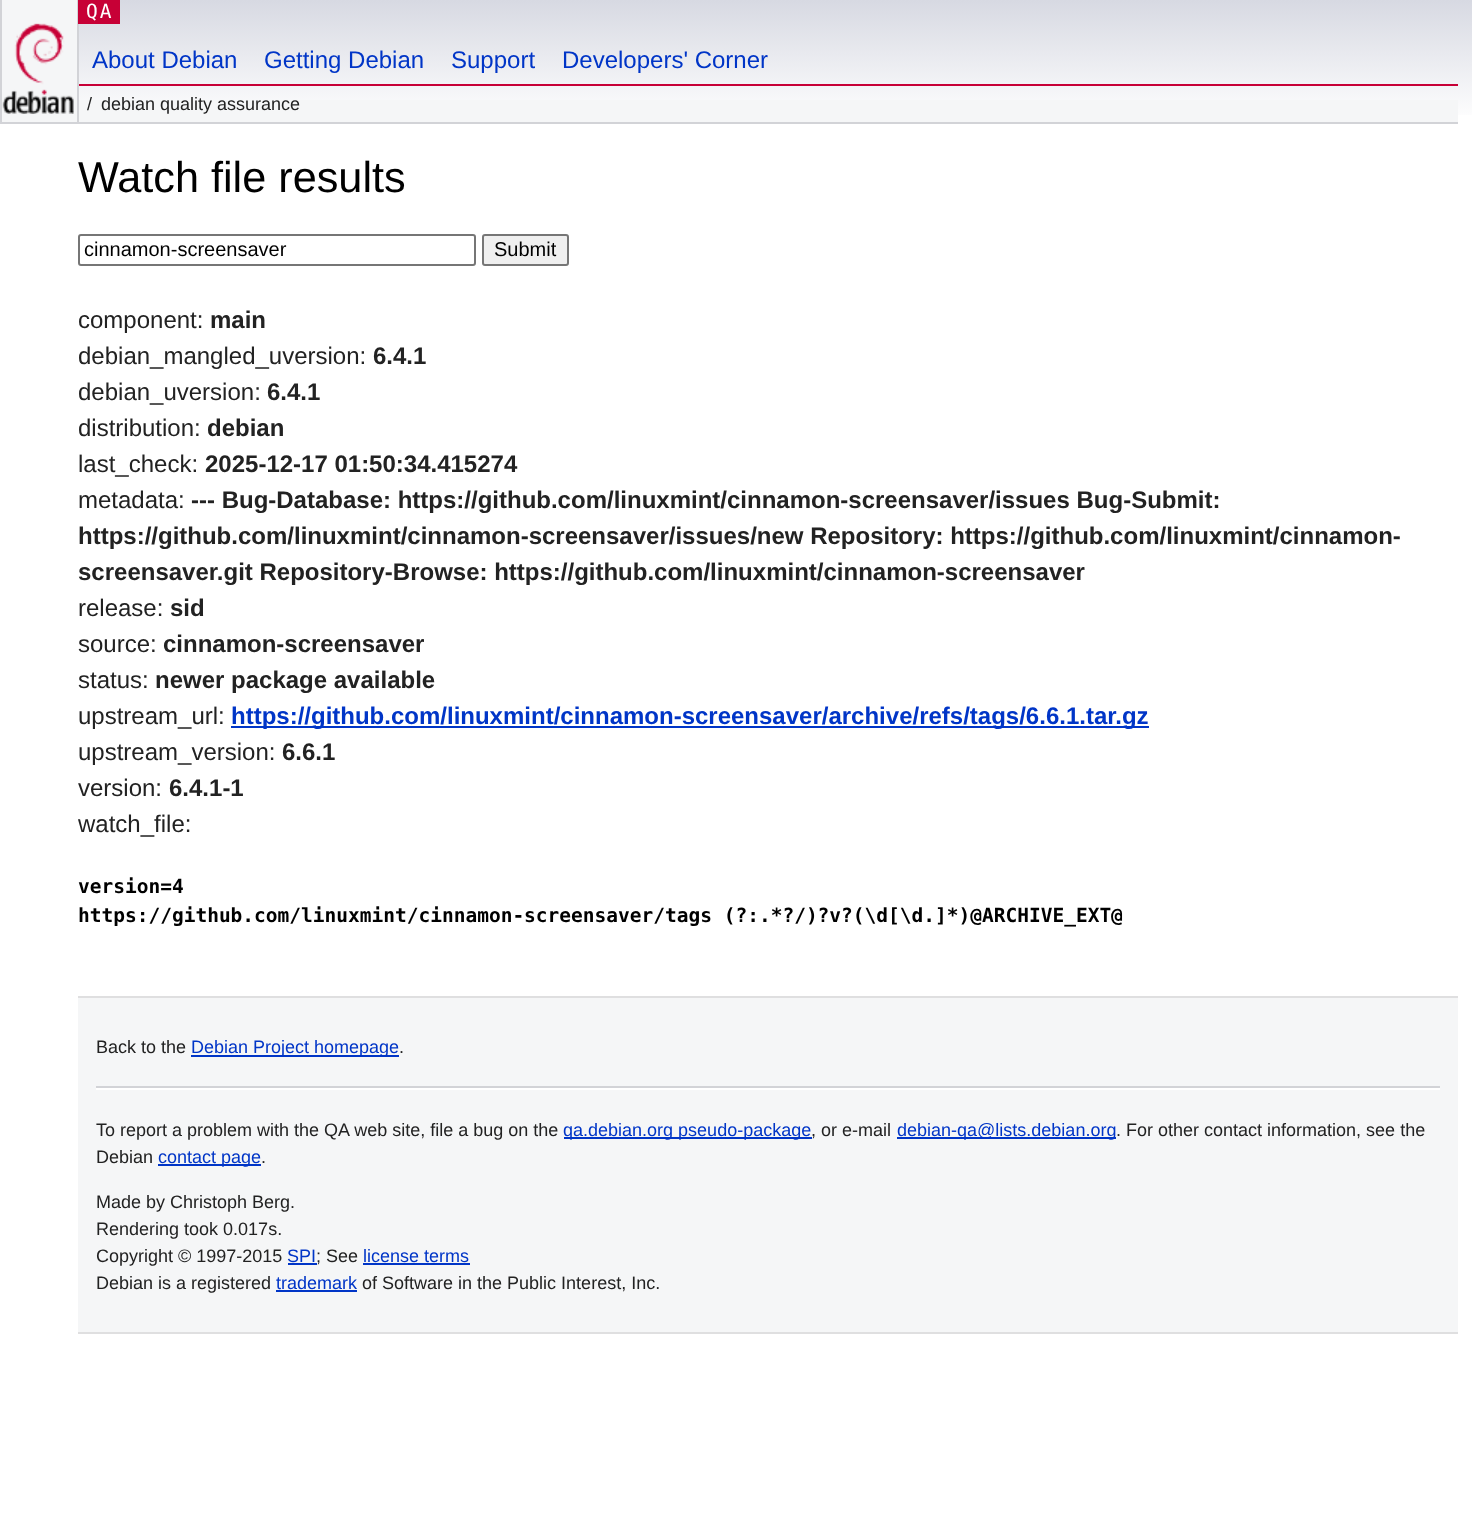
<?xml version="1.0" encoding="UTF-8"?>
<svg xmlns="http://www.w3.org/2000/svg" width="1472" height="1531">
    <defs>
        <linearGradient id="g1" gradientUnits="userSpaceOnUse" x1="737" y1="0" x2="737" y2="123"><stop offset="0" stop-color="#D7D9E2"/><stop offset="1" stop-color="#FFFFFF"/></linearGradient>
    </defs>
    <rect width="100%" height="100%" fill="#FFFFFF"/>
    <rect x="79" y="0" width="1393" height="115" fill="url(#g1)"/>
    <rect x="2" y="0" width="75" height="122" fill="#F5F6F7"/>
    <rect x="78" y="84" width="1380" height="2" fill="#C70036"/>
    <rect x="78" y="122" width="1380" height="2" fill="#D2D3D7"/>
    <rect x="77" y="0" width="2" height="123" fill="#D2D3D7"/>
    <rect x="0" y="122" width="78" height="2" fill="#D2D3D7"/>
    <rect x="0" y="0" width="2" height="123" fill="#D2D3D7"/>
    <image x="2" y="23" width="72" height="91" href="img_01.png"/>
    <rect x="78" y="0" width="42" height="24" fill="#C70036"/>
    <text x="86" y="18" font-family="DejaVu Sans Mono" font-size="19.5" letter-spacing="2" fill="#FFFFFF">QA</text>
    <text x="92" y="68" font-family="Liberation Sans" font-size="24" fill="#0035C7">About Debian</text>
    <text x="264" y="68" font-family="Liberation Sans" font-size="24" fill="#0035C7">Getting Debian</text>
    <text x="451" y="68" font-family="Liberation Sans" font-size="24" fill="#0035C7">Support</text>
    <text x="562" y="68" font-family="Liberation Sans" font-size="24" fill="#0035C7">Developers' Corner</text>
    <rect x="79" y="100" width="1379" height="22" fill="#F5F6F7"/>
    <text x="87" y="110" font-family="Liberation Sans" font-size="18" fill="#222222">/</text>
    <text x="101" y="110" font-family="Liberation Sans" font-size="18" fill="#222222">debian quality assurance</text>
    <text x="78" y="192" font-family="Liberation Sans" font-size="43.25" fill="#000000">Watch file results</text>
    <rect x="79" y="235" width="396" height="30" rx="2" fill="none" stroke="#767676" stroke-width="2"/>
    <text x="84" y="256" font-family="Liberation Sans" font-size="20" fill="#000000">cinnamon-screensaver</text>
    <rect x="483" y="235" width="85" height="30" rx="2" fill="#EFEFEF" stroke="#767676" stroke-width="2"/>
    <text x="494" y="256" font-family="Liberation Sans" font-size="20" fill="#000000">Submit</text>
    <text x="78" y="328" font-family="Liberation Sans" font-size="24" fill="#222222">component:</text>
    <text x="210" y="328" font-family="Liberation Sans" font-size="24" font-weight="700" fill="#222222">main</text>
    <text x="78" y="364" font-family="Liberation Sans" font-size="24" fill="#222222">debian_mangled_uversion:</text>
    <text x="373" y="364" font-family="Liberation Sans" font-size="24" font-weight="700" fill="#222222">6.4.1</text>
    <text x="78" y="400" font-family="Liberation Sans" font-size="24" fill="#222222">debian_uversion:</text>
    <text x="267" y="400" font-family="Liberation Sans" font-size="24" font-weight="700" fill="#222222">6.4.1</text>
    <text x="78" y="436" font-family="Liberation Sans" font-size="24" fill="#222222">distribution:</text>
    <text x="207" y="436" font-family="Liberation Sans" font-size="24" font-weight="700" fill="#222222">debian</text>
    <text x="78" y="472" font-family="Liberation Sans" font-size="24" fill="#222222">last_check:</text>
    <text x="205" y="472" font-family="Liberation Sans" font-size="24" font-weight="700" fill="#222222">2025-12-17 01:50:34.415274</text>
    <text x="78" y="508" font-family="Liberation Sans" font-size="24" fill="#222222">metadata:</text>
    <text x="191" y="508" font-family="Liberation Sans" font-size="24" font-weight="700" fill="#222222">--- Bug-Database: https://github.com/linuxmint/cinnamon-screensaver/issues Bug-Submit:</text>
    <text font-family="Liberation Sans" font-size="24" font-weight="700" fill="#222222">
        <tspan x="78" y="544">https://github.com/linuxmint/cinnamon-screensaver/issues/new Repository: https://github.com/linuxmint/cinnamon-</tspan>
        <tspan x="78" y="580">screensaver.git Repository-Browse: https://github.com/linuxmint/cinnamon-screensaver</tspan>
    </text>
    <text x="78" y="616" font-family="Liberation Sans" font-size="24" fill="#222222">release:</text>
    <text x="170" y="616" font-family="Liberation Sans" font-size="24" font-weight="700" fill="#222222">sid</text>
    <text x="78" y="652" font-family="Liberation Sans" font-size="24" fill="#222222">source:</text>
    <text x="163" y="652" font-family="Liberation Sans" font-size="24" font-weight="700" fill="#222222">cinnamon-screensaver</text>
    <text x="78" y="688" font-family="Liberation Sans" font-size="24" fill="#222222">status:</text>
    <text x="155" y="688" font-family="Liberation Sans" font-size="24" font-weight="700" fill="#222222">newer package available</text>
    <text x="78" y="724" font-family="Liberation Sans" font-size="24" fill="#222222">upstream_url:</text>
    <rect x="231" y="726" width="918" height="2" fill="#0035C7"/>
    <text x="231" y="724" font-family="Liberation Sans" font-size="24" font-weight="700" fill="#0035C7">https://github.com/linuxmint/cinnamon-screensaver/archive/refs/tags/6.6.1.tar.gz</text>
    <text x="78" y="760" font-family="Liberation Sans" font-size="24" fill="#222222">upstream_version:</text>
    <text x="282" y="760" font-family="Liberation Sans" font-size="24" font-weight="700" fill="#222222">6.6.1</text>
    <text x="78" y="796" font-family="Liberation Sans" font-size="24" fill="#222222">version:</text>
    <text x="169" y="796" font-family="Liberation Sans" font-size="24" font-weight="700" fill="#222222">6.4.1-1</text>
    <text x="78" y="832" font-family="Liberation Sans" font-size="24" fill="#222222">watch_file:</text>
    <text font-family="DejaVu Sans Mono" font-size="19.5" font-weight="700" fill="#000000">
        <tspan x="78" y="893">version=4</tspan>
        <tspan x="78" y="922">https://github.com/linuxmint/cinnamon-screensaver/tags (?:.*?/)?v?(\d[\d.]*)@ARCHIVE_EXT@</tspan>
    </text>
    <rect x="78" y="998" width="1380" height="334" fill="#F5F6F7"/>
    <rect x="78" y="996" width="1380" height="2" fill="#DFDFE0"/>
    <rect x="78" y="1332" width="1380" height="2" fill="#DFDFE0"/>
    <text x="96" y="1053" font-family="Liberation Sans" font-size="18" fill="#222222">Back to the</text>
    <rect x="191" y="1055" width="208" height="2" fill="#0035C7"/>
    <text x="191" y="1053" font-family="Liberation Sans" font-size="18" fill="#0035C7">Debian Project homepage</text>
    <text x="399" y="1053" font-family="Liberation Sans" font-size="18" fill="#222222">.</text>
    <rect x="96" y="1086" width="1344" height="2" fill="#D2D3D7"/>
    <rect x="96" y="1088" width="1344" height="2" fill="#FFFFFF"/>
    <text x="96" y="1136" font-family="Liberation Sans" font-size="18" fill="#222222">To report a problem with the QA web site, file a bug on the</text>
    <rect x="564" y="1137" width="248" height="2" fill="#0035C7"/>
    <text x="563" y="1136" font-family="Liberation Sans" font-size="18" fill="#0035C7">qa.debian.org pseudo-package</text>
    <text x="811" y="1136" font-family="Liberation Sans" font-size="18" fill="#222222">, or e-mail</text>
    <rect x="897" y="1137" width="219" height="2" fill="#0035C7"/>
    <text x="897" y="1136" font-family="Liberation Sans" font-size="18" fill="#0035C7">debian-qa@lists.debian.org</text>
    <text x="1116" y="1136" font-family="Liberation Sans" font-size="18" fill="#222222">. For other contact information, see the</text>
    <text x="96" y="1163" font-family="Liberation Sans" font-size="18" fill="#222222">Debian</text>
    <rect x="158" y="1164" width="103" height="2" fill="#0035C7"/>
    <text x="158" y="1163" font-family="Liberation Sans" font-size="18" fill="#0035C7">contact page</text>
    <text x="261" y="1163" font-family="Liberation Sans" font-size="18" fill="#222222">.</text>
    <text font-family="Liberation Sans" font-size="18" fill="#222222">
        <tspan x="96" y="1208">Made by Christoph Berg.</tspan>
        <tspan x="96" y="1235">Rendering took 0.017s.</tspan>
        <tspan x="96" y="1262">Copyright © 1997-2015</tspan>
    </text>
    <text x="287" y="1262" font-family="Liberation Sans" font-size="18" fill="#0035C7">SPI</text>
    <rect x="288" y="1263" width="29" height="2" fill="#0035C7"/>
    <text x="316" y="1262" font-family="Liberation Sans" font-size="18" fill="#222222">; See</text>
    <text x="363" y="1262" font-family="Liberation Sans" font-size="18" fill="#0035C7">license terms</text>
    <rect x="363" y="1263" width="107" height="2" fill="#0035C7"/>
    <text x="96" y="1289" font-family="Liberation Sans" font-size="18" fill="#222222">Debian is a registered</text>
    <text x="276" y="1289" font-family="Liberation Sans" font-size="18" fill="#0035C7">trademark</text>
    <rect x="276" y="1290" width="81" height="2" fill="#0035C7"/>
    <text x="362" y="1289" font-family="Liberation Sans" font-size="18" fill="#222222">of Software in the Public Interest, Inc.</text>
</svg>
